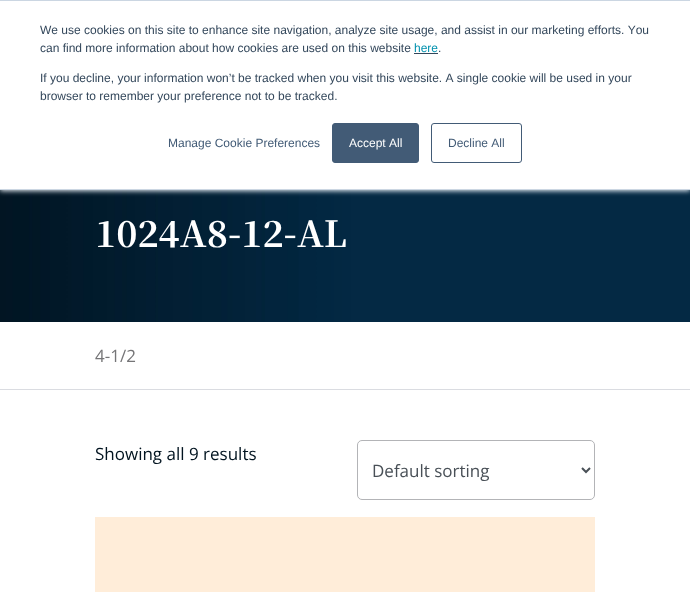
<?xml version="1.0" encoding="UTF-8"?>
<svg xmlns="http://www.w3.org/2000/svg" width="690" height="592">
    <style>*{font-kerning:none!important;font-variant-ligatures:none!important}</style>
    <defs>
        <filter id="blur1" x="-50%" y="-200%" width="200%" height="500%"><feGaussianBlur stdDeviation="2.5"/></filter>
    </defs>
    <rect width="100%" height="100%" fill="#FFFFFF"/>
    <image x="0" y="190" width="690" height="132" href="img_01.png"/>
    <rect x="0" y="1" width="690" height="190" fill="#EAF0F6" filter="url(#blur1)"/>
    <rect x="0" y="1" width="690" height="188" fill="#FFFFFF"/>
    <rect x="0" y="0" width="690" height="1" fill="#CBD6E2"/>
    <rect x="0" y="189" width="690" height="1" fill="#CBD6E2"/>
    <text font-family="Liberation Sans" font-size="12" fill="#33475B">
        <tspan x="40" y="34">We use cookies on this site to enhance site navigation, analyze site usage, and assist in our marketing efforts. You</tspan>
        <tspan x="40" y="52">can find more information about how cookies are used on this website</tspan>
    </text>
    <text x="414" y="52" font-family="Liberation Sans" font-size="12" fill="#0091AE">here</text>
    <rect x="414" y="53" width="24" height="1" fill="#33475B"/>
    <text x="438" y="52" font-family="Liberation Sans" font-size="12" fill="#33475B">.</text>
    <text font-family="Liberation Sans" font-size="12" fill="#33475B">
        <tspan x="40" y="82">If you decline, your information won’t be tracked when you visit this website. A single cookie will be used in your</tspan>
        <tspan x="40" y="100">browser to remember your preference not to be tracked.</tspan>
    </text>
    <text x="168" y="147" font-family="Liberation Sans" font-size="12" fill="#425B76">Manage Cookie Preferences</text>
    <rect x="332.5" y="123.5" width="86" height="39" rx="2.5" fill="#425B76" stroke="#425B76"/>
    <text x="349" y="147" font-family="Liberation Sans" font-size="12" fill="#FFFFFF">Accept All</text>
    <rect x="431.5" y="123.5" width="90" height="39" rx="2.5" fill="none" stroke="#425B76"/>
    <text x="448" y="147" font-family="Liberation Sans" font-size="12" fill="#425B76">Decline All</text>
    <text x="95" y="247" font-family="Noto Serif JP" font-size="36" font-weight="700" fill="#FFFFFF">1024A8-12-AL</text>
    <rect x="0" y="389" width="690" height="1" fill="#DADCE1"/>
    <text x="95" y="362" font-family="Open Sans" font-size="17" fill="#757577">4-1/2</text>
    <text x="95" y="460" font-family="Open Sans" font-size="17" fill="#01131F">Showing all 9 results</text>
    <rect x="357.5" y="440.5" width="237" height="59" rx="4.5" fill="none" stroke="#B3B4B7"/>
    <path d="M 582 468 L 586 472 L 590 468" fill="none" stroke="#495057" stroke-width="2"/>
    <text x="372" y="477" font-family="Open Sans" font-size="17" fill="#495057">Default sorting</text>
    <rect x="95" y="517" width="500" height="75" fill="#FFEDD9"/>
</svg>
